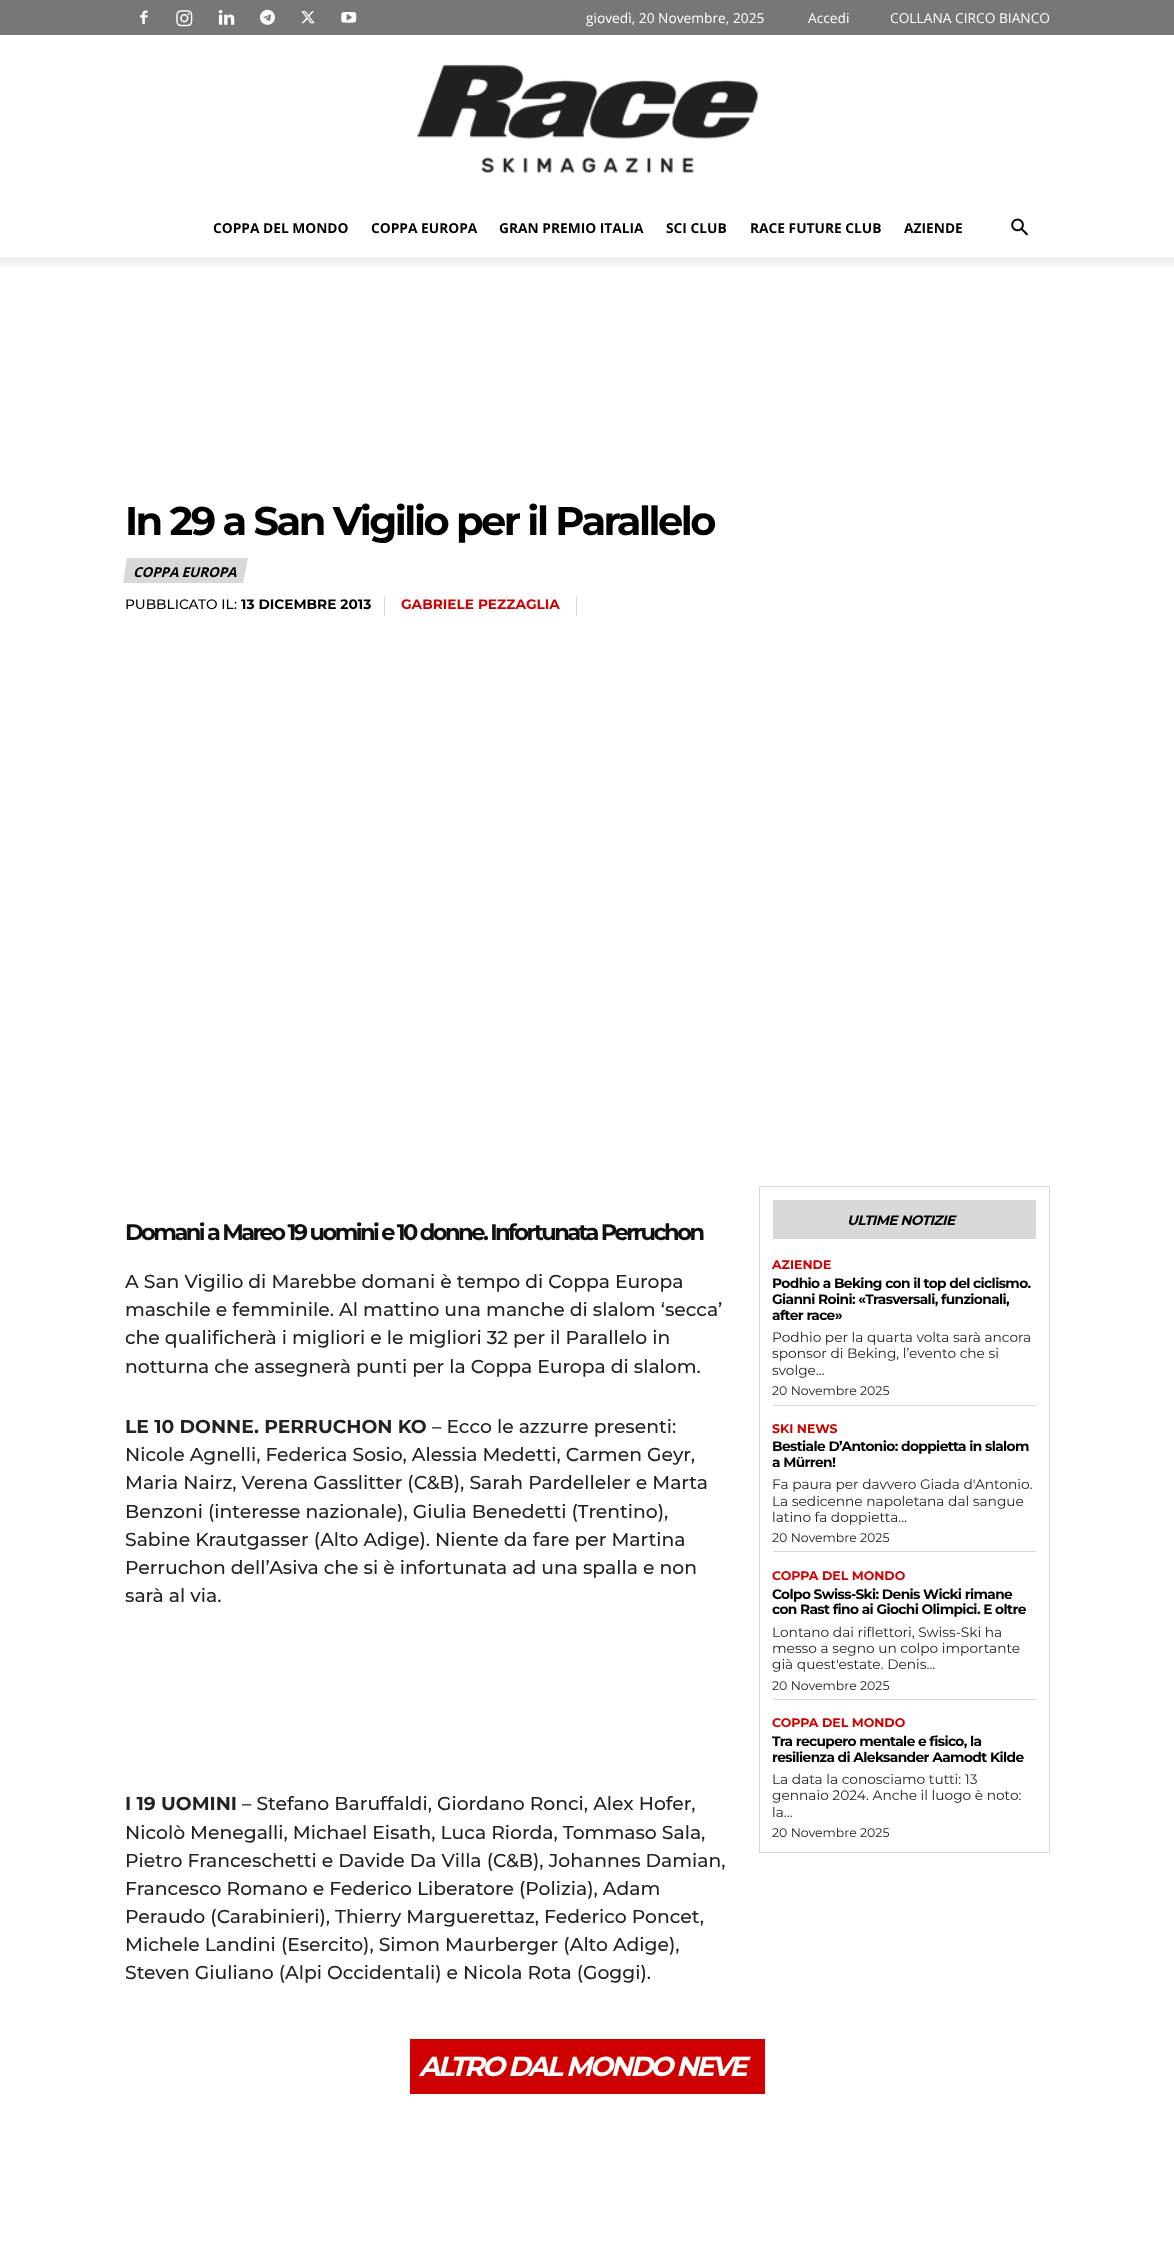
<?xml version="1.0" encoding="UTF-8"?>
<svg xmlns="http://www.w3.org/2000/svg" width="1174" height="2241">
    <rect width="100%" height="100%" fill="#FFFFFF"/>
    <rect x="0" y="0" width="1174" height="35" fill="#777777"/>
    <image x="140" y="10" width="8" height="15" href="img_01.png"/>
    <image x="176" y="10" width="17" height="17" href="img_02.png"/>
    <image x="218" y="9" width="17" height="16" href="img_03.png"/>
    <image x="260" y="9" width="15" height="16" href="img_04.png"/>
    <image x="301" y="11" width="14" height="13" href="img_05.png"/>
    <image x="341" y="12" width="16" height="11" href="img_06.png"/>
    <text x="586" y="23" font-family="Open Sans" font-size="13.75" fill="#FFFFFF">giovedì, 20 Novembre, 2025</text>
    <text x="808" y="23" font-family="Open Sans" font-size="13.75" fill="#FFFFFF">Accedi</text>
    <text x="890" y="23" font-family="Open Sans" font-size="13.75" fill="#FFFFFF">COLLANA CIRCO BIANCO</text>
    <image x="417" y="64" width="341" height="109" href="img_07.png"/>
    <text x="213" y="233" font-family="Open Sans" font-size="13.75" font-weight="700" fill="#000000">COPPA DEL MONDO</text>
    <text x="371" y="233" font-family="Open Sans" font-size="13.75" font-weight="700" fill="#000000">COPPA EUROPA</text>
    <text x="499" y="233" font-family="Open Sans" font-size="13.75" font-weight="700" fill="#000000">GRAN PREMIO ITALIA</text>
    <text x="666" y="233" font-family="Open Sans" font-size="13.75" font-weight="700" fill="#000000">SCI CLUB</text>
    <text x="750" y="233" font-family="Open Sans" font-size="13.75" font-weight="700" fill="#000000">RACE FUTURE CLUB</text>
    <text x="904" y="233" font-family="Open Sans" font-size="13.75" font-weight="700" fill="#000000">AZIENDE</text>
    <image x="1011" y="218" width="17" height="18" href="img_08.png"/>
    <image x="0" y="257" width="1174" height="11" href="img_09.png"/>
    <text x="125" y="535" font-family="Montserrat" font-size="40" font-weight="700" letter-spacing="-2.5" fill="#000000">In 29 a San Vigilio per il Parallelo</text>
    <path d="M 127 558 H 248 L 243 583 H 123 Z" fill="#D8D8D8"/>
    <text x="133" y="577" font-family="Open Sans" font-size="13.75" font-weight="700" font-style="italic" letter-spacing="-0.25" fill="#000000">COPPA EUROPA</text>
    <rect x="384" y="596" width="1" height="20" fill="#D8D8D8"/>
    <text x="125" y="609" font-family="Montserrat" font-size="13.75" font-weight="500" fill="#000000">PUBBLICATO IL:</text>
    <text x="241" y="609" font-family="Montserrat" font-size="13.75" font-weight="700" fill="#000000">13 DICEMBRE 2013</text>
    <rect x="576" y="596" width="1" height="20" fill="#D8D8D8"/>
    <text x="401" y="609" font-family="Montserrat" font-size="13.75" font-weight="700" fill="#CE0000">GABRIELE PEZZAGLIA</text>
    <text x="125" y="1240" font-family="Montserrat" font-size="22.5" font-weight="700" letter-spacing="-2.5" fill="#111111">Domani a Mareo 19 uomini e 10 donne. Infortunata Perruchon</text>
    <text font-family="Montserrat" font-size="18.75" font-weight="500" fill="#222222">
        <tspan x="125" y="1288">A San Vigilio di Marebbe domani è tempo di Coppa Europa</tspan>
        <tspan x="125" y="1316">maschile e femminile. Al mattino una manche di slalom ‘secca’</tspan>
        <tspan x="125" y="1344">che qualificherà i migliori e le migliori 32 per il Parallelo in</tspan>
        <tspan x="125" y="1373">notturna che assegnerà punti per la Coppa Europa di slalom.</tspan>
    </text>
    <text x="125" y="1433" font-family="Montserrat" font-size="18.75" font-weight="700" fill="#222222">LE 10 DONNE. PERRUCHON KO</text>
    <text x="432" y="1433" font-family="Montserrat" font-size="18.75" font-weight="500" fill="#222222">– Ecco le azzurre presenti:</text>
    <text font-family="Montserrat" font-size="18.75" font-weight="500" fill="#222222">
        <tspan x="125" y="1461">Nicole Agnelli, Federica Sosio, Alessia Medetti, Carmen Geyr,</tspan>
        <tspan x="125" y="1489">Maria Nairz, Verena Gasslitter (C&amp;B), Sarah Pardelleler e Marta</tspan>
        <tspan x="125" y="1518">Benzoni (interesse nazionale), Giulia Benedetti (Trentino),</tspan>
        <tspan x="125" y="1546">Sabine Krautgasser (Alto Adige). Niente da fare per Martina</tspan>
        <tspan x="125" y="1574">Perruchon dell’Asiva che si è infortunata ad una spalla e non</tspan>
        <tspan x="125" y="1602">sarà al via.</tspan>
    </text>
    <text x="125" y="1810" font-family="Montserrat" font-size="18.75" font-weight="700" fill="#222222">I 19 UOMINI</text>
    <text x="242" y="1810" font-family="Montserrat" font-size="18.75" font-weight="500" fill="#222222">– Stefano Baruffaldi, Giordano Ronci, Alex Hofer,</text>
    <text font-family="Montserrat" font-size="18.75" font-weight="500" fill="#222222">
        <tspan x="125" y="1839">Nicolò Menegalli, Michael Eisath, Luca Riorda, Tommaso Sala,</tspan>
        <tspan x="125" y="1867">Pietro Franceschetti e Davide Da Villa (C&amp;B), Johannes Damian,</tspan>
        <tspan x="125" y="1895">Francesco Romano e Federico Liberatore (Polizia), Adam</tspan>
        <tspan x="125" y="1923">Peraudo (Carabinieri), Thierry Marguerettaz, Federico Poncet,</tspan>
        <tspan x="125" y="1951">Michele Landini (Esercito), Simon Maurberger (Alto Adige),</tspan>
        <tspan x="125" y="1979">Steven Giuliano (Alpi Occidentali) e Nicola Rota (Goggi).</tspan>
    </text>
    <rect x="759.5" y="1186.5" width="290" height="666" fill="none" stroke="#D8D8D8"/>
    <rect x="773" y="1200" width="263" height="39" fill="#D8D8D8"/>
    <text x="847" y="1225" font-family="Montserrat" font-size="13.75" font-weight="700" font-style="italic" letter-spacing="-0.6" fill="#000000">ULTIME NOTIZIE</text>
    <text x="772" y="1269" font-family="Montserrat" font-size="12.5" font-weight="700" fill="#CE0000">AZIENDE</text>
    <text font-family="Montserrat" font-size="13.75" font-weight="700" letter-spacing="-0.6" fill="#000000">
        <tspan x="772" y="1288">Podhio a Beking con il top del ciclismo.</tspan>
        <tspan x="772" y="1304">Gianni Roini: «Trasversali, funzionali,</tspan>
        <tspan x="772" y="1320">after race»</tspan>
    </text>
    <text font-family="Montserrat" font-size="13.75" fill="#222222">
        <tspan x="772" y="1342">Podhio per la quarta volta sarà ancora</tspan>
        <tspan x="772" y="1358">sponsor di Beking, l’evento che si</tspan>
        <tspan x="772" y="1375">svolge...</tspan>
    </text>
    <text x="772" y="1395" font-family="Montserrat" font-size="12.5" fill="#222222">20 Novembre 2025</text>
    <rect x="773" y="1405" width="263" height="1" fill="#D8D8D8"/>
    <text x="772" y="1433" font-family="Montserrat" font-size="12.5" font-weight="700" fill="#CE0000">SKI NEWS</text>
    <text font-family="Montserrat" font-size="13.75" font-weight="700" letter-spacing="-0.6" fill="#000000">
        <tspan x="772" y="1451">Bestiale D’Antonio: doppietta in slalom</tspan>
        <tspan x="772" y="1467">a Mürren!</tspan>
    </text>
    <text font-family="Montserrat" font-size="13.75" fill="#222222">
        <tspan x="772" y="1489">Fa paura per davvero Giada d'Antonio.</tspan>
        <tspan x="772" y="1506">La sedicenne napoletana dal sangue</tspan>
        <tspan x="772" y="1522">latino fa doppietta...</tspan>
    </text>
    <text x="772" y="1542" font-family="Montserrat" font-size="12.5" fill="#222222">20 Novembre 2025</text>
    <rect x="773" y="1551" width="263" height="1" fill="#D8D8D8"/>
    <text x="772" y="1580" font-family="Montserrat" font-size="12.5" font-weight="700" fill="#CE0000">COPPA DEL MONDO</text>
    <text font-family="Montserrat" font-size="13.75" font-weight="700" letter-spacing="-0.6" fill="#000000">
        <tspan x="772" y="1599">Colpo Swiss-Ski: Denis Wicki rimane</tspan>
        <tspan x="772" y="1614">con Rast fino ai Giochi Olimpici. E oltre</tspan>
    </text>
    <text font-family="Montserrat" font-size="13.75" fill="#222222">
        <tspan x="772" y="1637">Lontano dai riflettori, Swiss-Ski ha</tspan>
        <tspan x="772" y="1653">messo a segno un colpo importante</tspan>
        <tspan x="772" y="1669">già quest'estate. Denis...</tspan>
    </text>
    <text x="772" y="1690" font-family="Montserrat" font-size="12.5" fill="#222222">20 Novembre 2025</text>
    <rect x="773" y="1699" width="263" height="1" fill="#D8D8D8"/>
    <text x="772" y="1727" font-family="Montserrat" font-size="12.5" font-weight="700" fill="#CE0000">COPPA DEL MONDO</text>
    <text font-family="Montserrat" font-size="13.75" font-weight="700" letter-spacing="-0.6" fill="#000000">
        <tspan x="772" y="1746">Tra recupero mentale e fisico, la</tspan>
        <tspan x="772" y="1762">resilienza di Aleksander Aamodt Kilde</tspan>
    </text>
    <text font-family="Montserrat" font-size="13.75" fill="#222222">
        <tspan x="772" y="1784">La data la conosciamo tutti: 13</tspan>
        <tspan x="772" y="1800">gennaio 2024. Anche il luogo è noto:</tspan>
        <tspan x="772" y="1817">la...</tspan>
    </text>
    <text x="772" y="1837" font-family="Montserrat" font-size="12.5" fill="#222222">20 Novembre 2025</text>
    <rect x="410" y="2039" width="355" height="55" fill="#CE0000"/>
    <text x="419" y="2076" font-family="Montserrat" font-size="27.5" font-weight="700" font-style="italic" letter-spacing="-2.5" fill="#FFFFFF">ALTRO DAL MONDO NEVE</text>
</svg>
